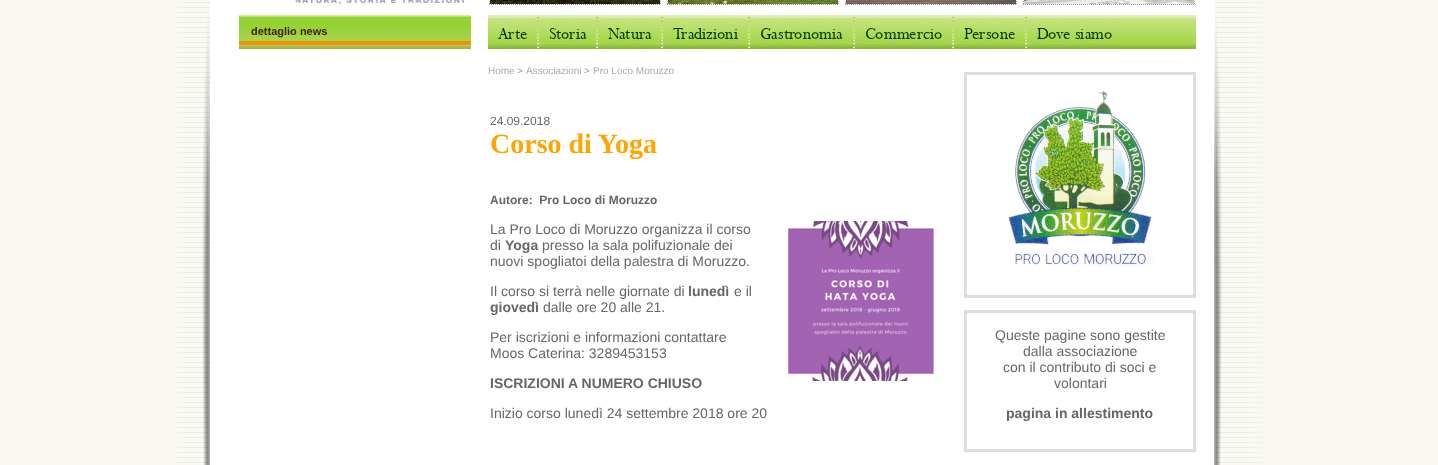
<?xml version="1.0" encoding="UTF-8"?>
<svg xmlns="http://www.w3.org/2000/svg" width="1438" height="465">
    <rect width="100%" height="100%" fill="#FAFAF0"/>
    <image x="174" y="0" width="1092" height="465" href="img_01.png"/>
    <image x="295" y="0" width="169" height="5" href="img_02.png"/>
    <path d="M 660.5 -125 V 5" fill="none" stroke="#999999" stroke-dasharray="1 1"/>
    <path d="M 489 4.5 H 661" fill="none" stroke="#999999" stroke-dasharray="1 1"/>
    <path d="M 489.5 -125 V 5" fill="none" stroke="#999999" stroke-dasharray="1 1"/>
    <image x="490" y="0" width="170" height="4" href="img_03.png"/>
    <path d="M 838.5 -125 V 5" fill="none" stroke="#999999" stroke-dasharray="1 1"/>
    <path d="M 667 4.5 H 839" fill="none" stroke="#999999" stroke-dasharray="1 1"/>
    <path d="M 667.5 -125 V 5" fill="none" stroke="#999999" stroke-dasharray="1 1"/>
    <image x="668" y="0" width="170" height="4" href="img_04.png"/>
    <path d="M 1016.5 -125 V 5" fill="none" stroke="#999999" stroke-dasharray="1 1"/>
    <path d="M 845 4.5 H 1017" fill="none" stroke="#999999" stroke-dasharray="1 1"/>
    <path d="M 845.5 -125 V 5" fill="none" stroke="#999999" stroke-dasharray="1 1"/>
    <image x="846" y="0" width="170" height="4" href="img_05.png"/>
    <path d="M 1194.5 -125 V 5" fill="none" stroke="#999999" stroke-dasharray="1 1"/>
    <path d="M 1023 4.5 H 1195" fill="none" stroke="#999999" stroke-dasharray="1 1"/>
    <path d="M 1023.5 -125 V 5" fill="none" stroke="#999999" stroke-dasharray="1 1"/>
    <image x="1024" y="0" width="170" height="4" href="img_06.png"/>
    <image x="239" y="15" width="232" height="34" href="img_07.png"/>
    <text x="251" y="35" font-family="Liberation Sans" font-size="11" font-weight="700" fill="#401C03">dettaglio news</text>
    <image x="537" y="15" width="659" height="34" href="img_08.png"/>
    <image x="488" y="15" width="49" height="34" href="img_09.png"/>
    <image x="537" y="16" width="2" height="33" href="img_10.png"/>
    <image x="539" y="15" width="57" height="34" href="img_11.png"/>
    <image x="596" y="16" width="2" height="33" href="img_10.png"/>
    <image x="598" y="15" width="63" height="34" href="img_12.png"/>
    <image x="661" y="16" width="2" height="33" href="img_10.png"/>
    <image x="663" y="15" width="85" height="34" href="img_13.png"/>
    <image x="748" y="16" width="2" height="33" href="img_10.png"/>
    <image x="750" y="15" width="103" height="34" href="img_14.png"/>
    <image x="853" y="16" width="2" height="33" href="img_10.png"/>
    <image x="855" y="15" width="97" height="34" href="img_15.png"/>
    <image x="952" y="16" width="2" height="33" href="img_10.png"/>
    <image x="954" y="15" width="71" height="34" href="img_16.png"/>
    <image x="1025" y="16" width="2" height="33" href="img_10.png"/>
    <image x="1027" y="15" width="95" height="34" href="img_17.png"/>
    <text x="488" y="74" font-family="Liberation Sans" font-size="10" fill="#AAAAAA">Home</text>
    <text x="517" y="74" font-family="Liberation Sans" font-size="10" fill="#999999">&gt;</text>
    <text x="526" y="74" font-family="Liberation Sans" font-size="10" fill="#AAAAAA">Associazioni</text>
    <text x="584" y="74" font-family="Liberation Sans" font-size="10" fill="#999999">&gt;</text>
    <text x="593" y="74" font-family="Liberation Sans" font-size="10" fill="#AAAAAA">Pro Loco Moruzzo</text>
    <text x="490" y="125" font-family="Liberation Sans" font-size="12" fill="#666666">24.09.2018</text>
    <text x="490" y="153" font-family="Liberation Serif" font-size="28" font-weight="700" fill="#FFA500">Corso di Yoga</text>
    <text x="490" y="204" font-family="Liberation Sans" font-size="12" font-weight="700" fill="#666666" xml:space="preserve">Autore:  Pro Loco di Moruzzo</text>
    <text font-family="Liberation Sans" font-size="14" fill="#666666">
        <tspan x="490" y="234">La Pro Loco di Moruzzo organizza il corso</tspan>
        <tspan x="490" y="250">di</tspan>
    </text>
    <text x="505" y="250" font-family="Liberation Sans" font-size="14" font-weight="700" fill="#666666">Yoga</text>
    <text x="542" y="250" font-family="Liberation Sans" font-size="14" fill="#666666">presso la sala polifuzionale dei</text>
    <text x="490" y="266" font-family="Liberation Sans" font-size="14" fill="#666666">nuovi spogliatoi della palestra di Moruzzo.</text>
    <image x="787" y="221" width="147" height="160" href="img_18.png"/>
    <text x="490" y="296" font-family="Liberation Sans" font-size="14" fill="#666666">Il corso si terrà nelle giornate di</text>
    <text x="688" y="296" font-family="Liberation Sans" font-size="14" font-weight="700" fill="#666666">lunedì</text>
    <text x="734" y="296" font-family="Liberation Sans" font-size="14" fill="#666666">e il</text>
    <text x="490" y="312" font-family="Liberation Sans" font-size="14" font-weight="700" fill="#666666">giovedì</text>
    <text x="543" y="312" font-family="Liberation Sans" font-size="14" fill="#666666">dalle ore 20 alle 21.</text>
    <text font-family="Liberation Sans" font-size="14" fill="#666666">
        <tspan x="490" y="342">Per iscrizioni e informazioni contattare</tspan>
        <tspan x="490" y="358">Moos Caterina: 3289453153</tspan>
    </text>
    <text x="490" y="388" font-family="Liberation Sans" font-size="14" font-weight="700" fill="#666666">ISCRIZIONI A NUMERO CHIUSO</text>
    <text x="490" y="418" font-family="Liberation Sans" font-size="14" fill="#666666">Inizio corso lunedì 24 settembre 2018 ore 20</text>
    <rect x="965.5" y="73.5" width="229" height="223" fill="none" stroke="#DDDDDD" stroke-width="3"/>
    <image x="1008" y="91" width="146" height="176" href="img_19.png"/>
    <rect x="965.5" y="311.5" width="229" height="139" fill="none" stroke="#DDDDDD" stroke-width="3"/>
    <text x="995" y="340" font-family="Liberation Sans" font-size="14" fill="#666666">Queste pagine sono gestite</text>
    <text x="1023" y="356" font-family="Liberation Sans" font-size="14" fill="#666666">dalla associazione</text>
    <text x="1003" y="372" font-family="Liberation Sans" font-size="14" fill="#666666">con il contributo di soci e</text>
    <text x="1054" y="388" font-family="Liberation Sans" font-size="14" fill="#666666">volontari</text>
    <text x="1006" y="418" font-family="Liberation Sans" font-size="14" font-weight="700" fill="#666666">pagina in allestimento</text>
</svg>
